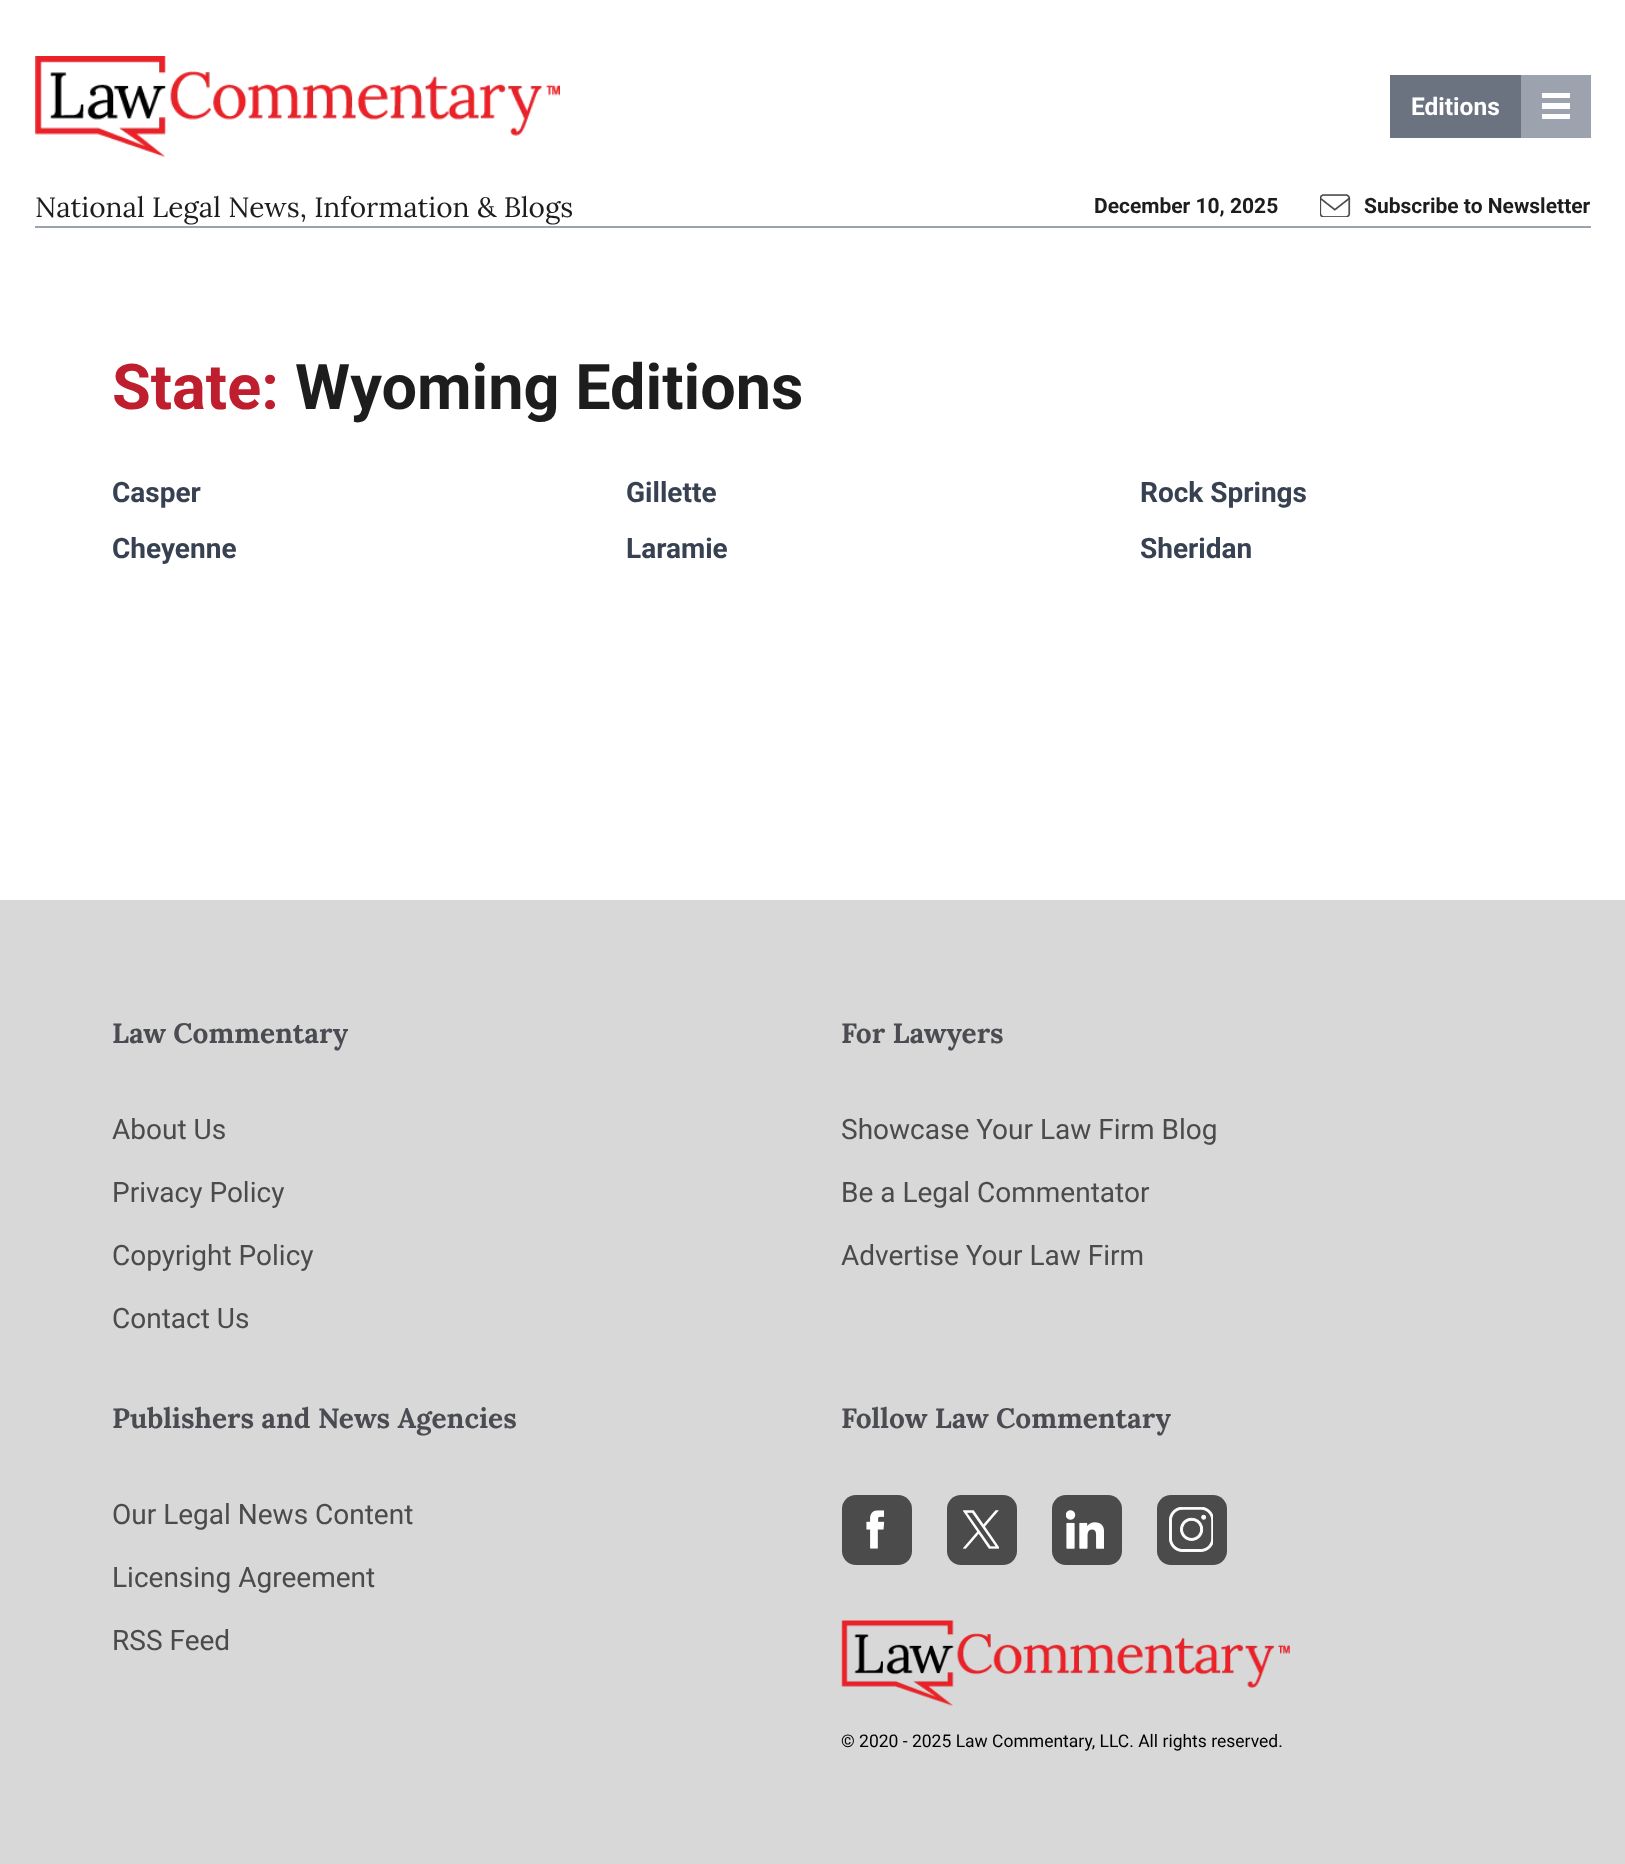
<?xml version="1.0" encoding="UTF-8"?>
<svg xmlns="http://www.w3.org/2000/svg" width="1625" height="1864">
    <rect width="100%" height="100%" fill="#FFFFFF"/>
    <image x="35" y="56" width="525" height="102" href="img_01.png"/>
    <rect x="1390" y="75" width="131" height="63" fill="#6B7280"/>
    <text x="1411" y="115" font-family="Roboto" font-size="24.5" font-weight="700" fill="#FFFFFF">Editions</text>
    <rect x="1521" y="75" width="70" height="63" fill="#9CA3AF"/>
    <rect x="1542" y="93" width="28" height="5" fill="#FFFFFF"/>
    <rect x="1542" y="103" width="28" height="6" fill="#FFFFFF"/>
    <rect x="1542" y="114" width="28" height="5" fill="#FFFFFF"/>
    <text x="35" y="217" font-family="Lora" font-size="28" fill="#1D1D1D">National Legal News, Information &amp; Blogs</text>
    <text x="1094" y="213" font-family="Roboto" font-size="21" font-weight="700" fill="#1D1D1D">December 10, 2025</text>
    <image x="1320" y="194" width="31" height="23" href="img_02.png"/>
    <text x="1364" y="213" font-family="Roboto" font-size="21" font-weight="700" fill="#1D1D1D">Subscribe to Newsletter</text>
    <rect x="35" y="226" width="1556" height="2" fill="#9CA3AF"/>
    <text x="112" y="409" font-family="Roboto" font-size="63" font-weight="700" fill="#BE1E2E">State:</text>
    <text x="295" y="409" font-family="Roboto" font-size="63" font-weight="700" fill="#1D1D1D">Wyoming Editions</text>
    <text x="112" y="502" font-family="Roboto" font-size="28" font-weight="700" fill="#374151">Casper</text>
    <text x="626" y="502" font-family="Roboto" font-size="28" font-weight="700" fill="#374151">Gillette</text>
    <text x="1140" y="502" font-family="Roboto" font-size="28" font-weight="700" fill="#374151">Rock Springs</text>
    <text x="112" y="558" font-family="Roboto" font-size="28" font-weight="700" fill="#374151">Cheyenne</text>
    <text x="626" y="558" font-family="Roboto" font-size="28" font-weight="700" fill="#374151">Laramie</text>
    <text x="1140" y="558" font-family="Roboto" font-size="28" font-weight="700" fill="#374151">Sheridan</text>
    <rect x="0" y="900" width="1625" height="964" fill="#D8D8D8"/>
    <text x="112" y="1043" font-family="Lora" font-size="28" font-weight="700" fill="#4A4C52">Law Commentary</text>
    <text x="112" y="1139" font-family="Roboto" font-size="28" fill="#4B4B4B">About Us</text>
    <text x="112" y="1202" font-family="Roboto" font-size="28" fill="#4B4B4B">Privacy Policy</text>
    <text x="112" y="1265" font-family="Roboto" font-size="28" fill="#4B4B4B">Copyright Policy</text>
    <text x="112" y="1328" font-family="Roboto" font-size="28" fill="#4B4B4B">Contact Us</text>
    <text x="841" y="1043" font-family="Lora" font-size="28" font-weight="700" fill="#4A4C52">For Lawyers</text>
    <text x="841" y="1139" font-family="Roboto" font-size="28" fill="#4B4B4B">Showcase Your Law Firm Blog</text>
    <text x="841" y="1202" font-family="Roboto" font-size="28" fill="#4B4B4B">Be a Legal Commentator</text>
    <text x="841" y="1265" font-family="Roboto" font-size="28" fill="#4B4B4B">Advertise Your Law Firm</text>
    <text x="112" y="1428" font-family="Lora" font-size="28" font-weight="700" fill="#4A4C52">Publishers and News Agencies</text>
    <text x="112" y="1524" font-family="Roboto" font-size="28" fill="#4B4B4B">Our Legal News Content</text>
    <text x="112" y="1587" font-family="Roboto" font-size="28" fill="#4B4B4B">Licensing Agreement</text>
    <text x="112" y="1650" font-family="Roboto" font-size="28" fill="#4B4B4B">RSS Feed</text>
    <text x="841" y="1428" font-family="Lora" font-size="28" font-weight="700" fill="#4A4C52">Follow Law Commentary</text>
    <rect x="842" y="1495" width="70" height="70" rx="14" fill="#4B4B4B"/>
    <image x="866" y="1510" width="19" height="39" href="img_03.png"/>
    <rect x="947" y="1495" width="70" height="70" rx="14" fill="#4B4B4B"/>
    <image x="963" y="1510" width="36" height="39" href="img_04.png"/>
    <rect x="1052" y="1495" width="70" height="70" rx="14" fill="#4B4B4B"/>
    <image x="1066" y="1510" width="38" height="39" href="img_05.png"/>
    <rect x="1157" y="1495" width="70" height="70" rx="14" fill="#4B4B4B"/>
    <image x="1169" y="1507" width="44" height="45" href="img_06.png"/>
    <image x="841" y="1620" width="449" height="86" href="img_07.png"/>
    <text x="841" y="1747" font-family="Roboto" font-size="17.5" fill="#000000">© 2020 - 2025 Law Commentary, LLC. All rights reserved.</text>
</svg>
